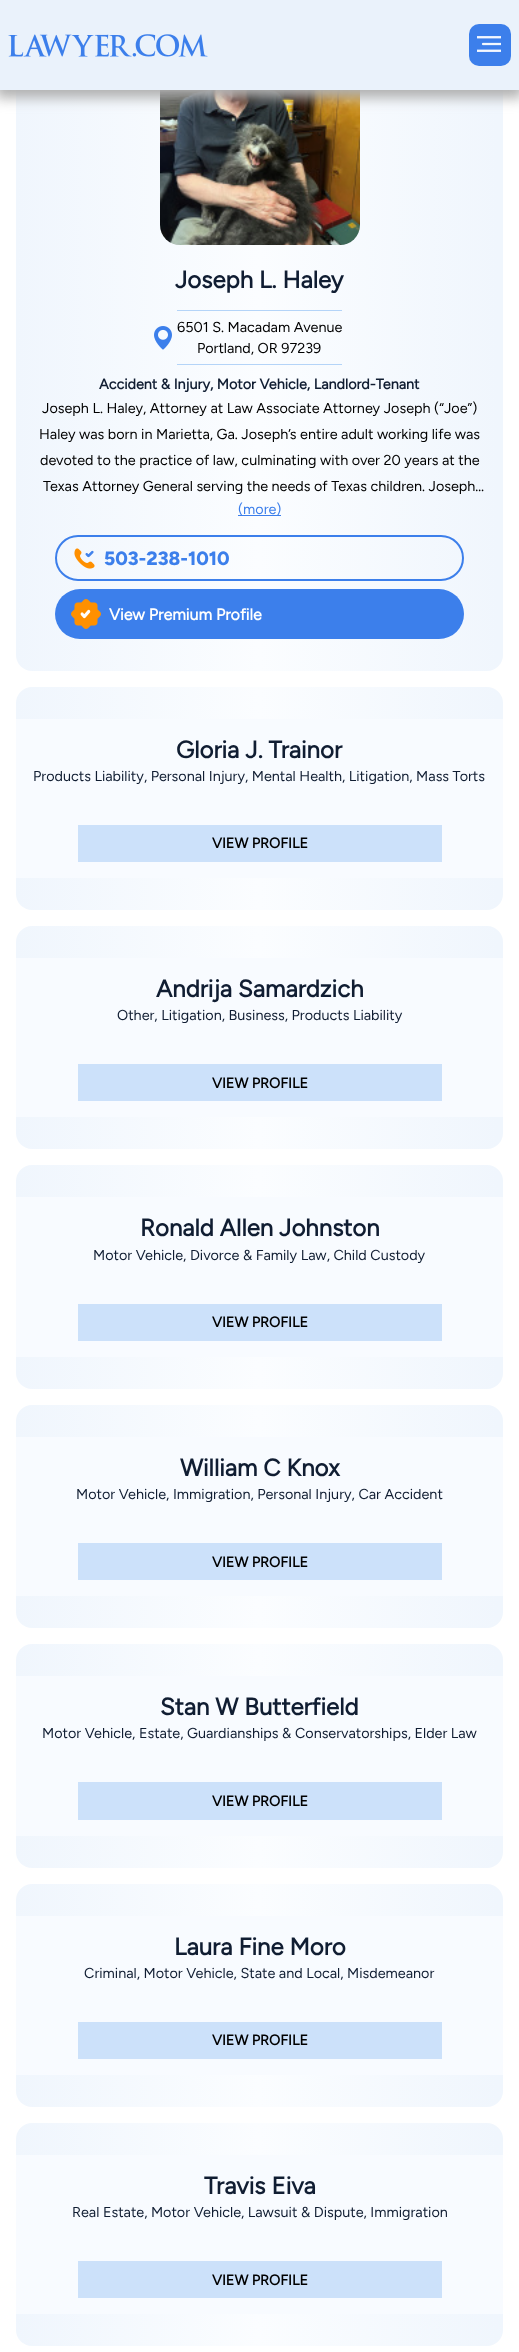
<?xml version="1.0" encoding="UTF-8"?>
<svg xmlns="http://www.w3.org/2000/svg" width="519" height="2352">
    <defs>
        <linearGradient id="g1" gradientUnits="userSpaceOnUse" x1="16" y1="327" x2="503" y2="327"><stop offset="0" stop-color="#F0F6FD"/><stop offset="0.5" stop-color="#FBFDFF"/><stop offset="0.99" stop-color="#F0F6FD"/></linearGradient>
        <filter id="blur1" x="-50%" y="-200%" width="200%" height="500%"><feGaussianBlur stdDeviation="6.5"/></filter>
        <linearGradient id="g2" gradientUnits="userSpaceOnUse" x1="16" y1="799" x2="503" y2="799"><stop offset="0" stop-color="#F0F6FD"/><stop offset="0.5" stop-color="#FBFDFF"/><stop offset="0.99" stop-color="#F0F6FD"/></linearGradient>
        <linearGradient id="g3" gradientUnits="userSpaceOnUse" x1="16" y1="1038" x2="503" y2="1038"><stop offset="0" stop-color="#F0F6FD"/><stop offset="0.5" stop-color="#FBFDFF"/><stop offset="0.99" stop-color="#F0F6FD"/></linearGradient>
        <linearGradient id="g4" gradientUnits="userSpaceOnUse" x1="16" y1="1277" x2="503" y2="1277"><stop offset="0" stop-color="#F0F6FD"/><stop offset="0.5" stop-color="#FBFDFF"/><stop offset="0.99" stop-color="#F0F6FD"/></linearGradient>
        <linearGradient id="g5" gradientUnits="userSpaceOnUse" x1="16" y1="1517" x2="503" y2="1517"><stop offset="0" stop-color="#F0F6FD"/><stop offset="0.5" stop-color="#FBFDFF"/><stop offset="0.99" stop-color="#F0F6FD"/></linearGradient>
        <linearGradient id="g6" gradientUnits="userSpaceOnUse" x1="16" y1="1756" x2="503" y2="1756"><stop offset="0" stop-color="#F0F6FD"/><stop offset="0.5" stop-color="#FBFDFF"/><stop offset="0.99" stop-color="#F0F6FD"/></linearGradient>
        <linearGradient id="g7" gradientUnits="userSpaceOnUse" x1="16" y1="1996" x2="503" y2="1996"><stop offset="0" stop-color="#F0F6FD"/><stop offset="0.5" stop-color="#FBFDFF"/><stop offset="0.99" stop-color="#F0F6FD"/></linearGradient>
        <linearGradient id="g8" gradientUnits="userSpaceOnUse" x1="16" y1="2235" x2="503" y2="2235"><stop offset="0" stop-color="#F0F6FD"/><stop offset="0.5" stop-color="#FBFDFF"/><stop offset="0.99" stop-color="#F0F6FD"/></linearGradient>
    </defs>
    <rect width="100%" height="100%" fill="#FFFFFF"/>
    <rect x="16" y="-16" width="487" height="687" rx="16" fill="url(#g1)"/>
    <image x="160" y="90" width="200" height="155" href="img_03.png"/>
    <rect x="-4" y="0" width="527" height="98" fill="#B0B0B0" filter="url(#blur1)"/>
    <rect x="0" y="0" width="519" height="90" fill="#EAF2FB"/>
    <image x="8" y="34" width="200" height="23" href="img_01.png"/>
    <rect x="469" y="24" width="42" height="42" rx="10" fill="#3C7FEB"/>
    <image x="477" y="36" width="24" height="16" href="img_02.png"/>
    <text x="175" y="288" font-family="Figtree" font-size="24" font-weight="700" fill="#101D32">Joseph L. Haley</text>
    <rect x="177" y="310" width="165" height="1" fill="#B4D4F8"/>
    <image x="154" y="326" width="18" height="24" href="img_04.png"/>
    <text x="177" y="332" font-family="Figtree" font-size="14.4" fill="#000000">6501 S. Macadam Avenue</text>
    <text x="197" y="353" font-family="Figtree" font-size="14.4" fill="#000000">Portland, OR 97239</text>
    <rect x="177" y="364" width="165" height="1" fill="#B4D4F8"/>
    <text x="99" y="389" font-family="Figtree" font-size="14.4" font-weight="700" fill="#101D32">Accident &amp; Injury, Motor Vehicle, Landlord-Tenant</text>
    <text x="42" y="413" font-family="Figtree" font-size="14.4" fill="#000000">Joseph L. Haley, Attorney at Law Associate Attorney Joseph (“Joe”)</text>
    <text x="39" y="439" font-family="Figtree" font-size="14.4" fill="#000000">Haley was born in Marietta, Ga. Joseph’s entire adult working life was</text>
    <text x="40" y="465" font-family="Figtree" font-size="14.4" fill="#000000">devoted to the practice of law, culminating with over 20 years at the</text>
    <text x="43" y="491" font-family="Figtree" font-size="14.4" fill="#000000">Texas Attorney General serving the needs of Texas children. Joseph…</text>
    <rect x="238" y="515" width="43" height="1" fill="#3C7FEB"/>
    <text x="238" y="514" font-family="Figtree" font-size="14.4" fill="#3C7FEB">(more)</text>
    <rect x="56" y="536" width="407" height="44" rx="22" fill="none" stroke="#3C7FEB" stroke-width="2"/>
    <image x="74" y="548" width="21" height="21" href="img_05.png"/>
    <text x="104" y="565" font-family="Figtree" font-size="19.25" font-weight="800" fill="#3C7FEB">503-238-1010</text>
    <rect x="55" y="589" width="409" height="50" rx="25" fill="#3C7FEB"/>
    <image x="71" y="599" width="30" height="30" href="img_06.png"/>
    <text x="109" y="620" font-family="Figtree" font-size="16" font-weight="700" fill="#FFFFFF">View Premium Profile</text>
    <rect x="16" y="687" width="487" height="223" rx="16" fill="url(#g2)"/>
    <rect x="16" y="719" width="487" height="159" fill="#F8FBFF"/>
    <text x="176" y="758" font-family="Figtree" font-size="24" font-weight="700" fill="#101D32">Gloria J. Trainor</text>
    <text x="33" y="781" font-family="Figtree" font-size="14.4" fill="#101D32">Products Liability, Personal Injury, Mental Health, Litigation, Mass Torts</text>
    <rect x="78" y="825" width="364" height="37" fill="#CCE1FA"/>
    <text x="212" y="848" font-family="Figtree" font-size="14.4" font-weight="700" fill="#000000">VIEW PROFILE</text>
    <rect x="16" y="926" width="487" height="223" rx="16" fill="url(#g3)"/>
    <rect x="16" y="958" width="487" height="159" fill="#F8FBFF"/>
    <text x="156" y="997" font-family="Figtree" font-size="24" font-weight="700" fill="#101D32">Andrija Samardzich</text>
    <text x="117" y="1020" font-family="Figtree" font-size="14.4" fill="#101D32">Other, Litigation, Business, Products Liability</text>
    <rect x="78" y="1064" width="364" height="37" fill="#CCE1FA"/>
    <text x="212" y="1088" font-family="Figtree" font-size="14.4" font-weight="700" fill="#000000">VIEW PROFILE</text>
    <rect x="16" y="1165" width="487" height="224" rx="16" fill="url(#g4)"/>
    <rect x="16" y="1197" width="487" height="160" fill="#F8FBFF"/>
    <text x="140" y="1236" font-family="Figtree" font-size="24" font-weight="700" fill="#101D32">Ronald Allen Johnston</text>
    <text x="93" y="1260" font-family="Figtree" font-size="14.4" fill="#101D32">Motor Vehicle, Divorce &amp; Family Law, Child Custody</text>
    <rect x="78" y="1304" width="364" height="37" fill="#CCE1FA"/>
    <text x="212" y="1327" font-family="Figtree" font-size="14.4" font-weight="700" fill="#000000">VIEW PROFILE</text>
    <rect x="16" y="1405" width="487" height="223" rx="16" fill="url(#g5)"/>
    <rect x="16" y="1437" width="487" height="159" fill="#F8FBFF"/>
    <text x="180" y="1476" font-family="Figtree" font-size="24" font-weight="700" fill="#101D32">William C Knox</text>
    <text x="76" y="1499" font-family="Figtree" font-size="14.4" fill="#101D32">Motor Vehicle, Immigration, Personal Injury, Car Accident</text>
    <rect x="78" y="1543" width="364" height="37" fill="#CCE1FA"/>
    <text x="212" y="1567" font-family="Figtree" font-size="14.4" font-weight="700" fill="#000000">VIEW PROFILE</text>
    <rect x="16" y="1644" width="487" height="224" rx="16" fill="url(#g6)"/>
    <rect x="16" y="1676" width="487" height="160" fill="#F8FBFF"/>
    <text x="160" y="1715" font-family="Figtree" font-size="24" font-weight="700" fill="#101D32">Stan W Butterfield</text>
    <text x="42" y="1738" font-family="Figtree" font-size="14.4" fill="#101D32">Motor Vehicle, Estate, Guardianships &amp; Conservatorships, Elder Law</text>
    <rect x="78" y="1782" width="364" height="38" fill="#CCE1FA"/>
    <text x="212" y="1806" font-family="Figtree" font-size="14.4" font-weight="700" fill="#000000">VIEW PROFILE</text>
    <rect x="16" y="1884" width="487" height="223" rx="16" fill="url(#g7)"/>
    <rect x="16" y="1916" width="487" height="159" fill="#F8FBFF"/>
    <text x="174" y="1955" font-family="Figtree" font-size="24" font-weight="700" fill="#101D32">Laura Fine Moro</text>
    <text x="84" y="1978" font-family="Figtree" font-size="14.4" fill="#101D32">Criminal, Motor Vehicle, State and Local, Misdemeanor</text>
    <rect x="78" y="2022" width="364" height="37" fill="#CCE1FA"/>
    <text x="212" y="2045" font-family="Figtree" font-size="14.4" font-weight="700" fill="#000000">VIEW PROFILE</text>
    <rect x="16" y="2123" width="487" height="223" rx="16" fill="url(#g8)"/>
    <rect x="16" y="2155" width="487" height="159" fill="#F8FBFF"/>
    <text x="204" y="2194" font-family="Figtree" font-size="24" font-weight="700" fill="#101D32">Travis Eiva</text>
    <text x="72" y="2217" font-family="Figtree" font-size="14.4" fill="#101D32">Real Estate, Motor Vehicle, Lawsuit &amp; Dispute, Immigration</text>
    <rect x="78" y="2261" width="364" height="37" fill="#CCE1FA"/>
    <text x="212" y="2285" font-family="Figtree" font-size="14.4" font-weight="700" fill="#000000">VIEW PROFILE</text>
</svg>
